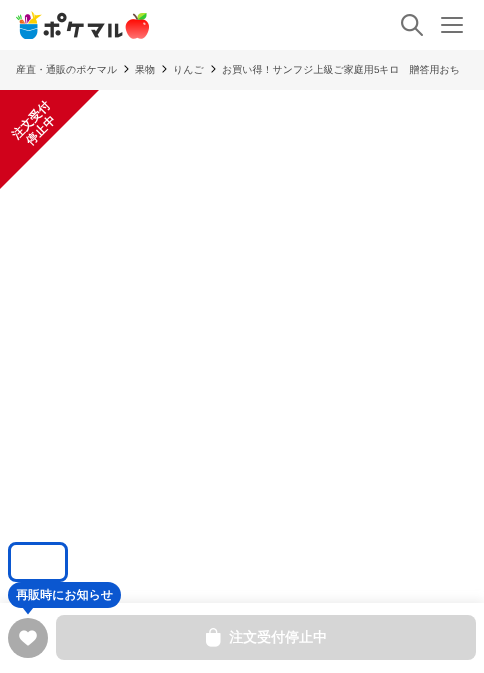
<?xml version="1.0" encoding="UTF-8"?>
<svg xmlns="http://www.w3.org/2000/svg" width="484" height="673">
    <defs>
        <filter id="blur1" x="-50%" y="-200%" width="200%" height="500%"><feGaussianBlur stdDeviation="5"/></filter>
    </defs>
    <rect width="100%" height="100%" fill="#FFFFFF"/>
    <image x="16" y="11" width="133" height="28" href="img_01.png"/>
    <image x="401" y="14" width="22" height="22" href="img_02.png"/>
    <image x="441" y="17" width="22" height="16" href="img_03.png"/>
    <rect x="0" y="50" width="484" height="40" fill="#F6F6F6"/>
    <text x="16" y="73" font-family="WenQuanYi Zen Hei" font-size="10" font-weight="500" fill="#4A4A4A">産直・通販のポケマル</text>
    <image x="124" y="65" width="5" height="8" href="img_04.png"/>
    <text x="135" y="73" font-family="WenQuanYi Zen Hei" font-size="10" font-weight="500" fill="#4A4A4A">果物</text>
    <image x="162" y="65" width="5" height="8" href="img_04.png"/>
    <text x="173" y="73" font-family="WenQuanYi Zen Hei" font-size="10" font-weight="500" fill="#4A4A4A">りんご</text>
    <image x="211" y="65" width="5" height="8" href="img_04.png"/>
    <text x="222" y="73" font-family="WenQuanYi Zen Hei" font-size="10" font-weight="500" fill="#4A4A4A">お買い得！サンフジ上級ご家庭用</text>
    <text x="374" y="73" font-family="Liberation Sans" font-size="10" fill="#4A4A4A">5</text>
    <text x="379" y="73" font-family="WenQuanYi Zen Hei" font-size="10" font-weight="500" fill="#4A4A4A">キロ　贈答用おち</text>
    <path d="M 99 90 L 0 189 V 90 Z" fill="#D0021B"/>
    <text x="17" y="140" transform="rotate(-45 17 140)" font-family="WenQuanYi Zen Hei" font-size="12" font-weight="700" fill="#FFFFFF">注文受付</text>
    <text x="31" y="146" transform="rotate(-45 31 146)" font-family="WenQuanYi Zen Hei" font-size="12" font-weight="700" fill="#FFFFFF">停止中</text>
    <rect x="9.5" y="543.5" width="57" height="37" rx="6.5" fill="none" stroke="#0B57D0" stroke-width="3"/>
    <rect x="0" y="600" width="484" height="70" fill="#DDDDDD" fill-opacity="0.5" filter="url(#blur1)"/>
    <rect x="0" y="603" width="484" height="70" fill="#FFFFFF"/>
    <rect x="8" y="582" width="113" height="26" rx="13" fill="#0B57D0"/>
    <text x="16" y="599" font-family="WenQuanYi Zen Hei" font-size="12" font-weight="700" fill="#FFFFFF">再販時にお知らせ</text>
    <path d="M 28 600.5 L 33.5 607.5 L 28 614.5 L 22.5 607.5 Z" fill="#0B57D0"/>
    <circle cx="28" cy="638" r="20" fill="#ABABAB"/>
    <image x="19" y="630" width="18" height="16" href="img_05.png"/>
    <rect x="56" y="615" width="420" height="45" rx="8" fill="#D6D6D6"/>
    <image x="206" y="628" width="15" height="19" href="img_06.png"/>
    <text x="229" y="642" font-family="WenQuanYi Zen Hei" font-size="14" font-weight="700" fill="#FFFFFF">注文受付停止中</text>
</svg>
